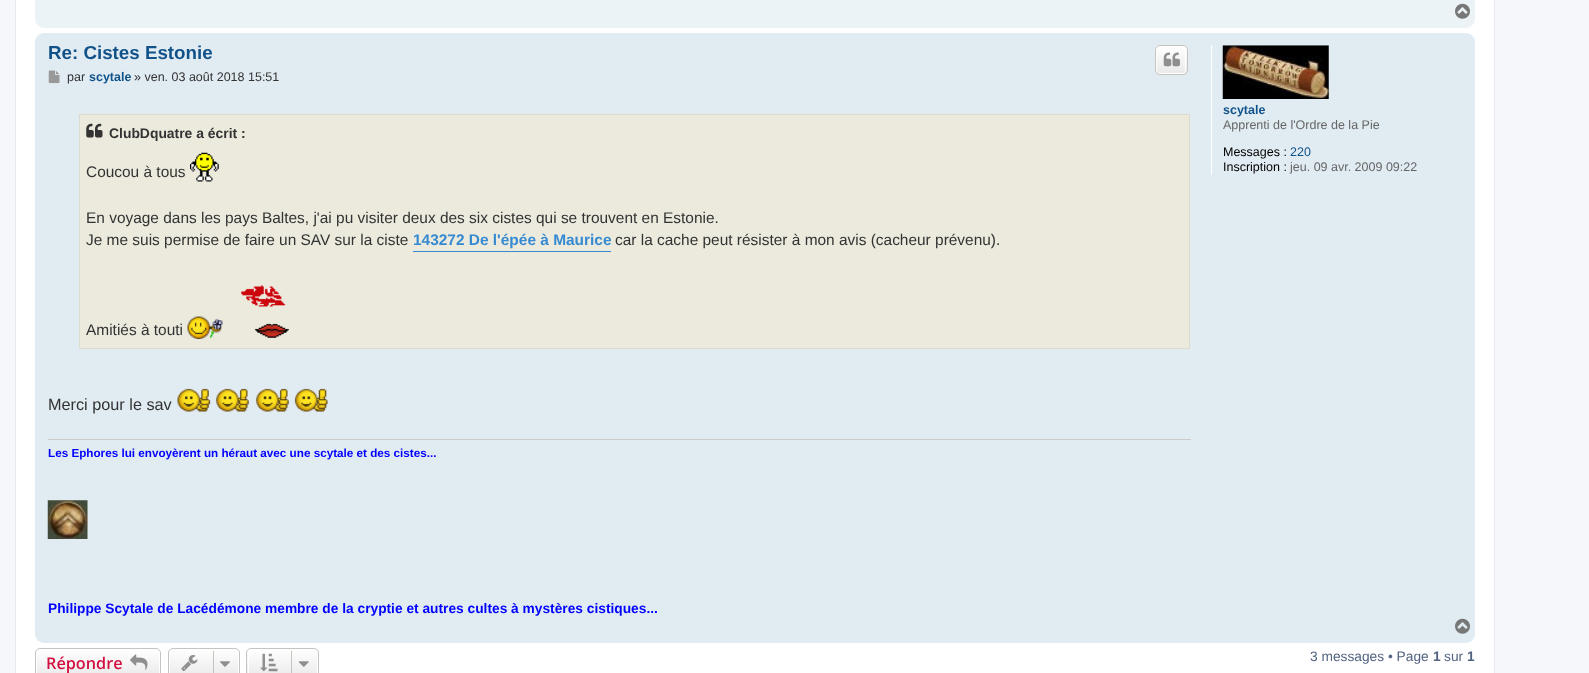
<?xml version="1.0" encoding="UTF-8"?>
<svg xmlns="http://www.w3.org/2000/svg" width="1589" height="673">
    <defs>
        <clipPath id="clip1"><rect x="1155" y="45" width="33" height="30" rx="5"/></clipPath>
        <linearGradient id="g1" gradientUnits="userSpaceOnUse" x1="1171" y1="46" x2="1171" y2="74"><stop offset="0" stop-color="#FFFFFF"/><stop offset="1" stop-color="#E9E9E9"/></linearGradient>
        <clipPath id="clip2"><rect x="35" y="648" width="126" height="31" rx="5"/></clipPath>
        <linearGradient id="g2" gradientUnits="userSpaceOnUse" x1="98" y1="649" x2="98" y2="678"><stop offset="0" stop-color="#FFFFFF"/><stop offset="1" stop-color="#E9E9E9"/></linearGradient>
        <clipPath id="clip3"><rect x="168" y="648" width="72" height="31" rx="5"/></clipPath>
        <linearGradient id="g3" gradientUnits="userSpaceOnUse" x1="204" y1="649" x2="204" y2="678"><stop offset="0" stop-color="#FFFFFF"/><stop offset="1" stop-color="#E9E9E9"/></linearGradient>
        <clipPath id="clip4"><rect x="246" y="648" width="73" height="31" rx="5"/></clipPath>
        <linearGradient id="g4" gradientUnits="userSpaceOnUse" x1="283" y1="649" x2="283" y2="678"><stop offset="0" stop-color="#FFFFFF"/><stop offset="1" stop-color="#E9E9E9"/></linearGradient>
    </defs>
    <rect width="100%" height="100%" fill="#F5F7FA"/>
    <rect x="15.5" y="-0.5" width="1479" height="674" fill="#FFFFFF" stroke="#E6E9ED"/>
    <rect x="35" y="-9" width="1440" height="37" rx="9" fill="#ECF3F7"/>
    <image x="1455" y="3" width="15" height="16" href="img_01.png"/>
    <rect x="35" y="33" width="1440" height="610" rx="9" fill="#E1EBF2"/>
    <text x="48" y="59" font-family="Liberation Sans" font-size="18.75" font-weight="700" fill="#105289">Re: Cistes Estonie</text>
    <g clip-path="url(#clip1)">
        <rect x="1155" y="46" width="33" height="28" fill="url(#g1)"/>
    </g>
    <rect x="1156.5" y="46.5" width="29" height="27" rx="3.5" fill="none" stroke="#FFFFFF"/>
    <rect x="1155.5" y="45.5" width="32" height="29" rx="4.5" fill="none" stroke="#C7C3BF"/>
    <image x="1163" y="52" width="17" height="15" href="img_02.png"/>
    <image x="48" y="70" width="12" height="14" href="img_03.png"/>
    <text x="67" y="81" font-family="Liberation Sans" font-size="12.5" fill="#333333">par</text>
    <text x="89" y="81" font-family="Liberation Sans" font-size="12.5" font-weight="700" fill="#105289">scytale</text>
    <text x="134" y="81" font-family="Liberation Sans" font-size="12.5" fill="#333333">» ven. 03 août 2018 15:51</text>
    <rect x="79.5" y="114.5" width="1110" height="234" fill="#EBEADD" stroke="#DBDBCE"/>
    <image x="86" y="123" width="17" height="15" href="img_04.png"/>
    <text x="109" y="138" font-family="Liberation Sans" font-size="13.9" font-weight="700" fill="#333333">ClubDquatre a écrit :</text>
    <text x="86" y="177" font-family="Liberation Sans" font-size="15.45" fill="#333333">Coucou à tous</text>
    <image x="190" y="152" width="29" height="30" href="img_05.png"/>
    <text font-family="Liberation Sans" font-size="15.45" fill="#333333">
        <tspan x="86" y="223">En voyage dans les pays Baltes, j'ai pu visiter deux des six cistes qui se trouvent en Estonie.</tspan>
        <tspan x="86" y="245">Je me suis permise de faire un SAV sur la ciste</tspan>
    </text>
    <rect x="413" y="251" width="198" height="1" fill="#368AD2"/>
    <text x="413" y="245" font-family="Liberation Sans" font-size="15.45" font-weight="700" fill="#368AD2">143272 De l'épée à Maurice</text>
    <text x="615" y="245" font-family="Liberation Sans" font-size="15.45" fill="#333333">car la cache peut résister à mon avis (cacheur prévenu).</text>
    <text x="86" y="335" font-family="Liberation Sans" font-size="15.45" fill="#333333">Amitiés à touti</text>
    <image x="187" y="316" width="36" height="23" href="img_06.png"/>
    <image x="241" y="285" width="48" height="53" href="img_07.png"/>
    <text x="48" y="410" font-family="Liberation Sans" font-size="16.25" fill="#333333">Merci pour le sav</text>
    <image x="177" y="388" width="34" height="24" href="img_08.png"/>
    <image x="216" y="388" width="33" height="24" href="img_09.png"/>
    <image x="256" y="388" width="33" height="24" href="img_09.png"/>
    <image x="294" y="388" width="34" height="24" href="img_10.png"/>
    <rect x="48" y="439" width="1143" height="1" fill="#CCCCCC"/>
    <text x="48" y="457" font-family="Liberation Sans" font-size="11.7" font-weight="700" fill="#0000FF">Les Ephores lui envoyèrent un héraut avec une scytale et des cistes...</text>
    <image x="47" y="500" width="41" height="39" href="img_11.png"/>
    <text x="48" y="613" font-family="Liberation Sans" font-size="13.75" font-weight="700" fill="#0000FF">Philippe Scytale de Lacédémone membre de la cryptie et autres cultes à mystères cistiques...</text>
    <rect x="1211" y="45" width="1" height="130" fill="#FFFFFF"/>
    <image x="1222" y="45" width="107" height="54" href="img_12.png"/>
    <text x="1223" y="114" font-family="Liberation Sans" font-size="12.5" font-weight="700" fill="#105289">scytale</text>
    <text x="1223" y="129" font-family="Liberation Sans" font-size="12.5" fill="#666666">Apprenti de l'Ordre de la Pie</text>
    <text x="1223" y="156" font-family="Liberation Sans" font-size="12.5" fill="#000000">Messages :</text>
    <text x="1290" y="156" font-family="Liberation Sans" font-size="12.5" fill="#105289">220</text>
    <text x="1223" y="171" font-family="Liberation Sans" font-size="12.5" fill="#000000">Inscription :</text>
    <text x="1290" y="171" font-family="Liberation Sans" font-size="12.5" fill="#666666">jeu. 09 avr. 2009 09:22</text>
    <image x="1455" y="618" width="15" height="16" href="img_13.png"/>
    <g clip-path="url(#clip2)">
        <rect x="35" y="649" width="126" height="24" fill="url(#g2)"/>
    </g>
    <rect x="36.5" y="649.5" width="123" height="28" rx="3.5" fill="none" stroke="#FFFFFF"/>
    <rect x="35.5" y="648.5" width="125" height="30" rx="4.5" fill="none" stroke="#C7C3BF"/>
    <text x="46" y="669" font-family="Open Sans" font-size="16.25" font-weight="600" fill="#D31141">Répondre</text>
    <image x="130" y="654" width="18" height="16" href="img_14.png"/>
    <g clip-path="url(#clip3)">
        <rect x="168" y="649" width="72" height="24" fill="url(#g3)"/>
    </g>
    <rect x="169.5" y="649.5" width="69" height="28" rx="3.5" fill="none" stroke="#FFFFFF"/>
    <rect x="168.5" y="648.5" width="71" height="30" rx="4.5" fill="none" stroke="#C7C3BF"/>
    <image x="181" y="655" width="17" height="16" href="img_15.png"/>
    <rect x="213" y="651" width="1" height="22" fill="#C7C3BF"/>
    <image x="220" y="661" width="10" height="6" href="img_16.png"/>
    <g clip-path="url(#clip4)">
        <rect x="246" y="649" width="73" height="24" fill="url(#g4)"/>
    </g>
    <rect x="248.5" y="649.5" width="69" height="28" rx="3.5" fill="none" stroke="#FFFFFF"/>
    <rect x="246.5" y="648.5" width="72" height="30" rx="4.5" fill="none" stroke="#C7C3BF"/>
    <image x="260" y="653" width="18" height="19" href="img_17.png"/>
    <rect x="291" y="651" width="1" height="22" fill="#C7C3BF"/>
    <image x="298" y="661" width="11" height="6" href="img_18.png"/>
    <text x="1310" y="661" font-family="Liberation Sans" font-size="13.75" fill="#536482">3 messages • Page</text>
    <text x="1433" y="661" font-family="Liberation Sans" font-size="13.75" font-weight="700" fill="#536482">1</text>
    <text x="1444" y="661" font-family="Liberation Sans" font-size="13.75" fill="#536482">sur</text>
    <text x="1467" y="661" font-family="Liberation Sans" font-size="13.75" font-weight="700" fill="#536482">1</text>
</svg>
